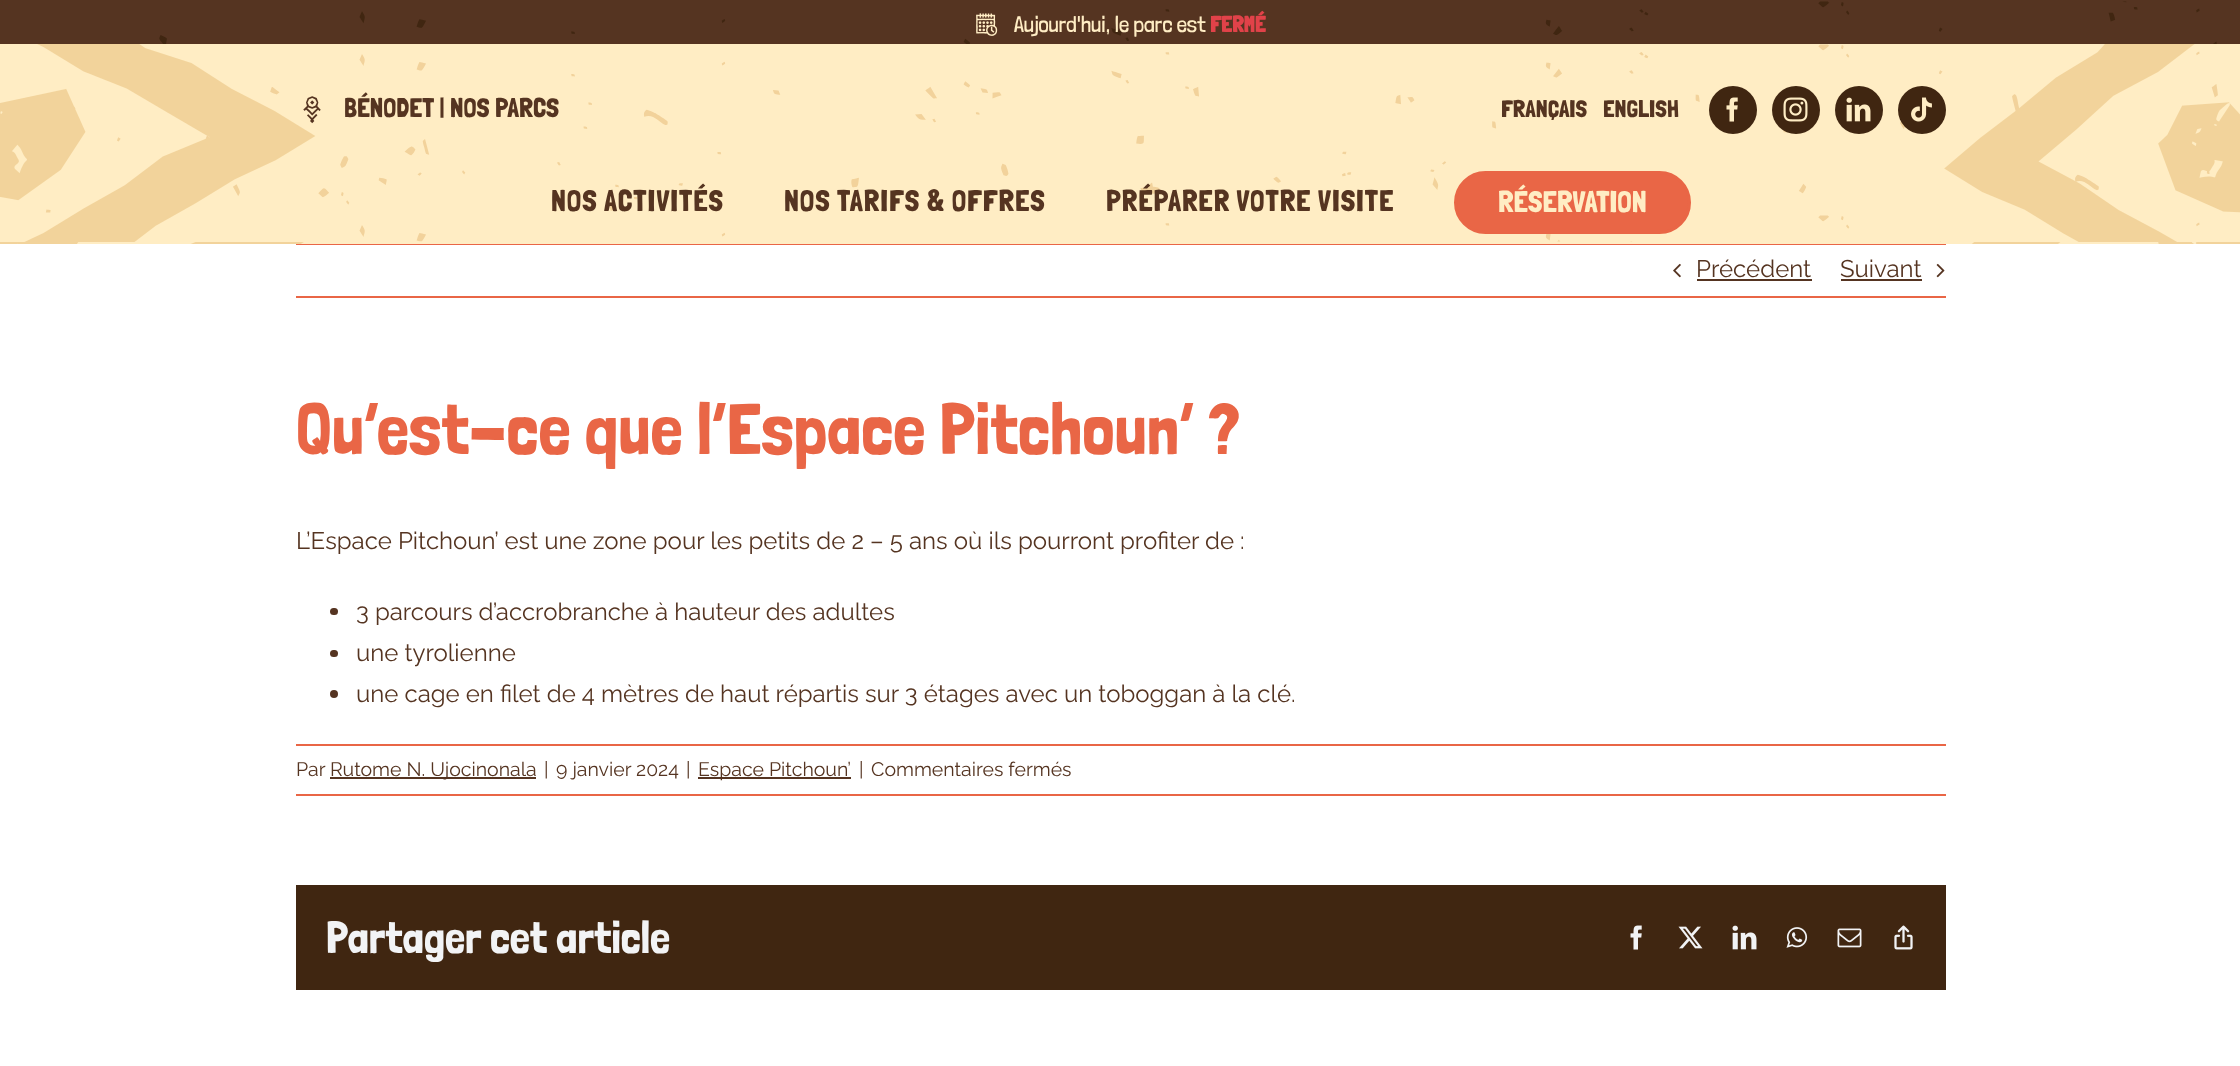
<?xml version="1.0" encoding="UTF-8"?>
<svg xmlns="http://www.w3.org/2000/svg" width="2240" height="1066">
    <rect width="100%" height="100%" fill="#FFFFFF"/>
    <rect x="0" y="0" width="2240" height="44" fill="#553421"/>
    <image x="159" y="1" width="2058" height="43" href="img_01.png"/>
    <image x="976" y="13" width="22" height="23" href="img_02.png"/>
    <text x="1014" y="32" font-family="Londrina Solid" font-size="22.5" font-weight="300" fill="#FFEDC4">Aujourd'hui, le parc est</text>
    <text x="1210" y="32" font-family="Londrina Solid" font-size="22.5" font-weight="700" fill="#E14249">FERMÉ</text>
    <rect x="0" y="44" width="2240" height="198" fill="#FFEDC4"/>
    <image x="45" y="44" width="2173" height="198" href="img_04.png"/>
    <image x="0" y="44" width="2240" height="198" href="img_03.png"/>
    <image x="303" y="96" width="18" height="28" href="img_05.png"/>
    <text x="344" y="117" font-family="Londrina Solid" font-size="27" fill="#553421">BÉNODET | NOS PARCS</text>
    <text x="1501" y="117" font-family="Londrina Solid" font-size="24" fill="#553421">FRANÇAIS</text>
    <text x="1603" y="117" font-family="Londrina Solid" font-size="24" fill="#553421">ENGLISH</text>
    <circle cx="1733" cy="110" r="24" fill="#402611"/>
    <image x="1726" y="97" width="12" height="25" href="img_06.png"/>
    <circle cx="1796" cy="110" r="24" fill="#402611"/>
    <image x="1783" y="97" width="25" height="25" href="img_07.png"/>
    <circle cx="1859" cy="110" r="24" fill="#402611"/>
    <image x="1846" y="97" width="25" height="25" href="img_08.png"/>
    <circle cx="1922" cy="110" r="24" fill="#402611"/>
    <image x="1911" y="97" width="21" height="25" href="img_09.png"/>
    <text x="551" y="211" font-family="Londrina Solid" font-size="30" letter-spacing="0.9" fill="#553421">NOS ACTIVITÉS</text>
    <text x="784" y="211" font-family="Londrina Solid" font-size="30" letter-spacing="0.9" fill="#553421">NOS TARIFS &amp; OFFRES</text>
    <text x="1106" y="211" font-family="Londrina Solid" font-size="30" letter-spacing="0.9" fill="#553421">PRÉPARER VOTRE VISITE</text>
    <rect x="1455.5" y="172.5" width="234" height="60" rx="30" fill="#E96646" stroke="#E96646" stroke-width="3"/>
    <text x="1498" y="212" font-family="Londrina Solid" font-size="30" fill="#FFEDC4">RÉSERVATION</text>
    <rect x="17" y="242" width="2180" height="2" fill="#FFEDC4"/>
    <image x="0" y="242" width="2240" height="2" href="img_10.png"/>
    <rect x="296" y="244" width="1650" height="1" fill="#E96646"/>
    <rect x="296" y="296" width="1650" height="2" fill="#E96646"/>
    <image x="1673" y="263" width="8" height="15" href="img_11.png"/>
    <text x="1696" y="277" font-family="Raleway" font-size="24" fill="#553421">Précédent</text>
    <rect x="1697" y="279" width="115" height="2" fill="#553421"/>
    <text x="1840" y="277" font-family="Raleway" font-size="24" fill="#553421">Suivant</text>
    <rect x="1841" y="279" width="81" height="2" fill="#553421"/>
    <image x="1936" y="263" width="9" height="15" href="img_12.png"/>
    <text x="296" y="454" font-family="Londrina Solid" font-size="72" fill="#E96646">Qu’est-ce que l’Espace Pitchoun’ ?</text>
    <text x="296" y="549" font-family="Raleway" font-size="24" fill="#553421">L’Espace Pitchoun’ est une zone pour les petits de 2 – 5 ans où ils pourront profiter de :</text>
    <rect x="330" y="608" width="8" height="7" rx="3.5" fill="#553421"/>
    <text x="356" y="620" font-family="Raleway" font-size="24" fill="#553421">3 parcours d’accrobranche à hauteur des adultes</text>
    <rect x="330" y="650" width="8" height="7" rx="3.5" fill="#553421"/>
    <text x="356" y="661" font-family="Raleway" font-size="24" fill="#553421">une tyrolienne</text>
    <circle cx="334" cy="694" r="4" fill="#553421"/>
    <text x="356" y="702" font-family="Raleway" font-size="24" fill="#553421">une cage en filet de 4 mètres de haut répartis sur 3 étages avec un toboggan à la clé.</text>
    <rect x="296" y="744" width="1650" height="2" fill="#E96646"/>
    <rect x="296" y="794" width="1650" height="2" fill="#E96646"/>
    <text x="296" y="776" font-family="Raleway" font-size="19.5" fill="#553421">Par</text>
    <rect x="330" y="777" width="206" height="2" fill="#553421"/>
    <text x="330" y="776" font-family="Raleway" font-size="19.5" fill="#553421">Rutome N. Ujocinonala</text>
    <text x="544" y="776" font-family="Raleway" font-size="19.5" fill="#553421">|</text>
    <text x="556" y="776" font-family="Raleway" font-size="19.5" fill="#553421">9 janvier 2024</text>
    <text x="686" y="776" font-family="Raleway" font-size="19.5" fill="#553421">|</text>
    <rect x="698" y="777" width="153" height="2" fill="#553421"/>
    <text x="698" y="776" font-family="Raleway" font-size="19.5" fill="#553421">Espace Pitchoun’</text>
    <text x="859" y="776" font-family="Raleway" font-size="19.5" fill="#553421">|</text>
    <text x="871" y="776" font-family="Raleway" font-size="19.5" fill="#553421">Commentaires fermés</text>
    <rect x="296" y="885" width="1650" height="105" fill="#402611"/>
    <text x="326" y="953" font-family="Londrina Solid" font-size="45" fill="#F2F3F5">Partager cet article</text>
    <image x="1630" y="925" width="12" height="25" href="img_13.png"/>
    <image x="1678" y="926" width="25" height="23" href="img_14.png"/>
    <image x="1732" y="925" width="25" height="25" href="img_15.png"/>
    <image x="1786" y="927" width="22" height="21" href="img_16.png"/>
    <image x="1837" y="928" width="25" height="20" href="img_17.png"/>
    <image x="1894" y="925" width="19" height="25" href="img_18.png"/>
</svg>
